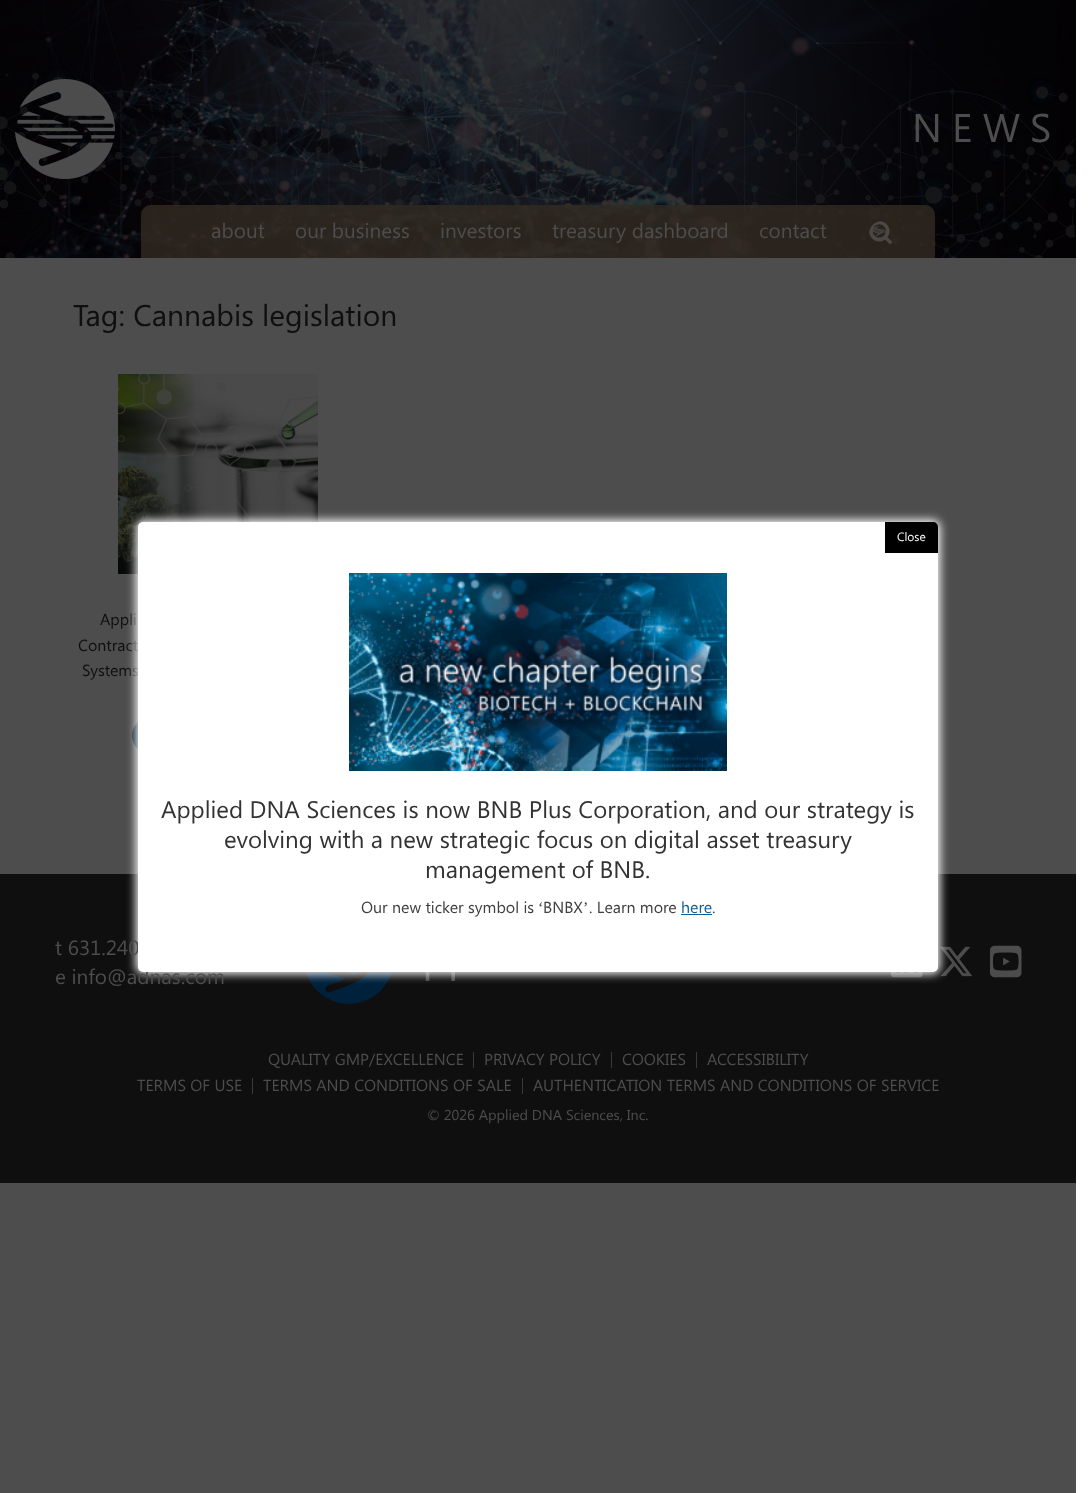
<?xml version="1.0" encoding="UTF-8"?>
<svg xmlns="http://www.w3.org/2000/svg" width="1091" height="1493">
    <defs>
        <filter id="blur1" x="-50%" y="-200%" width="200%" height="500%"><feGaussianBlur stdDeviation="5"/></filter>
    </defs>
    <rect width="100%" height="100%" fill="#FFFFFF"/>
    <rect x="0" y="258" width="1076" height="1235" fill="#4D4D4D"/>
    <image x="0" y="0" width="1076" height="258" href="img_01.png"/>
    <image x="0" y="60" width="1076" height="198" href="img_02.png"/>
    <image x="15" y="79" width="100" height="100" href="img_03.png"/>
    <text x="912" y="142" font-family="Segoe UI" font-size="40" letter-spacing="10" fill="#4D4D4D">NEWS</text>
    <path d="M 151 205 H 925 C 930.5 205 935 209.5 935 215 V 258 H 141 V 215 C 141 209.5 145.5 205 151 205 Z" fill="#332B22" fill-opacity="0.8"/>
    <text x="211" y="238" font-family="Segoe UI" font-size="20.75" fill="#4D4D4D">about</text>
    <text x="295" y="238" font-family="Segoe UI" font-size="20.75" fill="#4D4D4D">our business</text>
    <text x="440" y="238" font-family="Segoe UI" font-size="20.75" fill="#4D4D4D">investors</text>
    <text x="552" y="238" font-family="Segoe UI" font-size="20.75" fill="#4D4D4D">treasury dashboard</text>
    <text x="759" y="238" font-family="Segoe UI" font-size="20.75" fill="#4D4D4D">contact</text>
    <image x="869" y="221" width="23" height="24" href="img_04.png"/>
    <text x="73" y="326" font-family="Segoe UI" font-size="30" fill="#0F0F0F">Tag: Cannabis legislation</text>
    <image x="118" y="374" width="200" height="200" href="img_05.png"/>
    <text x="100" y="625" font-family="Segoe UI" font-size="16" fill="#0F0F0F">Appli</text>
    <text x="78" y="651" font-family="Segoe UI" font-size="16" fill="#0F0F0F">Contract</text>
    <text x="82" y="676" font-family="Segoe UI" font-size="16" fill="#0F0F0F">Systems</text>
    <rect x="132" y="717" width="172" height="37" rx="18.5" fill="#051C2D"/>
    <rect x="0" y="874" width="1076" height="309" fill="#0F0F0F"/>
    <image x="891" y="972" width="32" height="6" href="img_07.png"/>
    <image x="940" y="946" width="33" height="31" href="img_08.png"/>
    <image x="306" y="972" width="149" height="32" href="img_10.png"/>
    <rect x="136" y="520" width="804" height="454" rx="7" fill="#FFFFFF" filter="url(#blur1)"/>
    <text font-family="Segoe UI" font-size="20.75" fill="#4D4D4D">
        <tspan x="55" y="955">t 631.240</tspan>
        <tspan x="55" y="984">e info@adnas.com</tspan>
    </text>
    <rect x="138" y="522" width="800" height="450" rx="5" fill="#FFFFFF"/>
    <path d="M 885 522 H 933 C 936 522 938 524 938 527 V 553 H 885 Z" fill="#000000"/>
    <text x="897" y="541" font-family="Segoe UI" font-size="12" fill="#FFFFFF">Close</text>
    <image x="349" y="573" width="378" height="198" href="img_06.png"/>
    <text x="161" y="818" font-family="Segoe UI" font-size="24" fill="#333333">Applied DNA Sciences is now BNB Plus Corporation, and our strategy is</text>
    <text x="224" y="848" font-family="Segoe UI" font-size="24" fill="#333333">evolving with a new strategic focus on digital asset treasury</text>
    <text x="425" y="878" font-family="Segoe UI" font-size="24" fill="#333333">management of BNB.</text>
    <text x="361" y="913" font-family="Segoe UI" font-size="16" fill="#404040">Our new ticker symbol is</text>
    <text x="538" y="913" font-family="Liberation Serif" font-size="16" fill="#404040">‘</text>
    <text x="543" y="913" font-family="Segoe UI" font-size="16" fill="#404040">BNBX</text>
    <text x="583" y="913" font-family="Liberation Serif" font-size="16" fill="#404040">’</text>
    <text x="589" y="913" font-family="Segoe UI" font-size="16" fill="#404040">. Learn more</text>
    <text x="681" y="913" font-family="Segoe UI" font-size="16" fill="#125E97">here</text>
    <rect x="681" y="914" width="31" height="1" fill="#125E97"/>
    <text x="712" y="913" font-family="Segoe UI" font-size="16" fill="#404040">.</text>
    <image x="990" y="945" width="32" height="33" href="img_09.png"/>
    <rect x="473" y="1052" width="1" height="16" fill="#3A3A3A"/>
    <text x="268" y="1065" font-family="Segoe UI" font-size="16" fill="#4D4D4D">QUALITY GMP/EXCELLENCE</text>
    <rect x="611" y="1052" width="1" height="16" fill="#3A3A3A"/>
    <text x="484" y="1065" font-family="Segoe UI" font-size="16" fill="#4D4D4D">PRIVACY POLICY</text>
    <rect x="696" y="1052" width="1" height="16" fill="#3A3A3A"/>
    <text x="622" y="1065" font-family="Segoe UI" font-size="16" fill="#4D4D4D">COOKIES</text>
    <text x="707" y="1065" font-family="Segoe UI" font-size="16" fill="#4D4D4D">ACCESSIBILITY</text>
    <rect x="252" y="1078" width="1" height="16" fill="#3A3A3A"/>
    <text x="137" y="1091" font-family="Segoe UI" font-size="16" fill="#4D4D4D">TERMS OF USE</text>
    <rect x="522" y="1078" width="1" height="16" fill="#3A3A3A"/>
    <text x="263" y="1091" font-family="Segoe UI" font-size="16" fill="#4D4D4D">TERMS AND CONDITIONS OF SALE</text>
    <text x="533" y="1091" font-family="Segoe UI" font-size="16" fill="#4D4D4D">AUTHENTICATION TERMS AND CONDITIONS OF SERVICE</text>
    <text x="427" y="1120" font-family="Segoe UI" font-size="14.4" fill="#4D4D4D">© 2026 Applied DNA Sciences, Inc.</text>
</svg>
